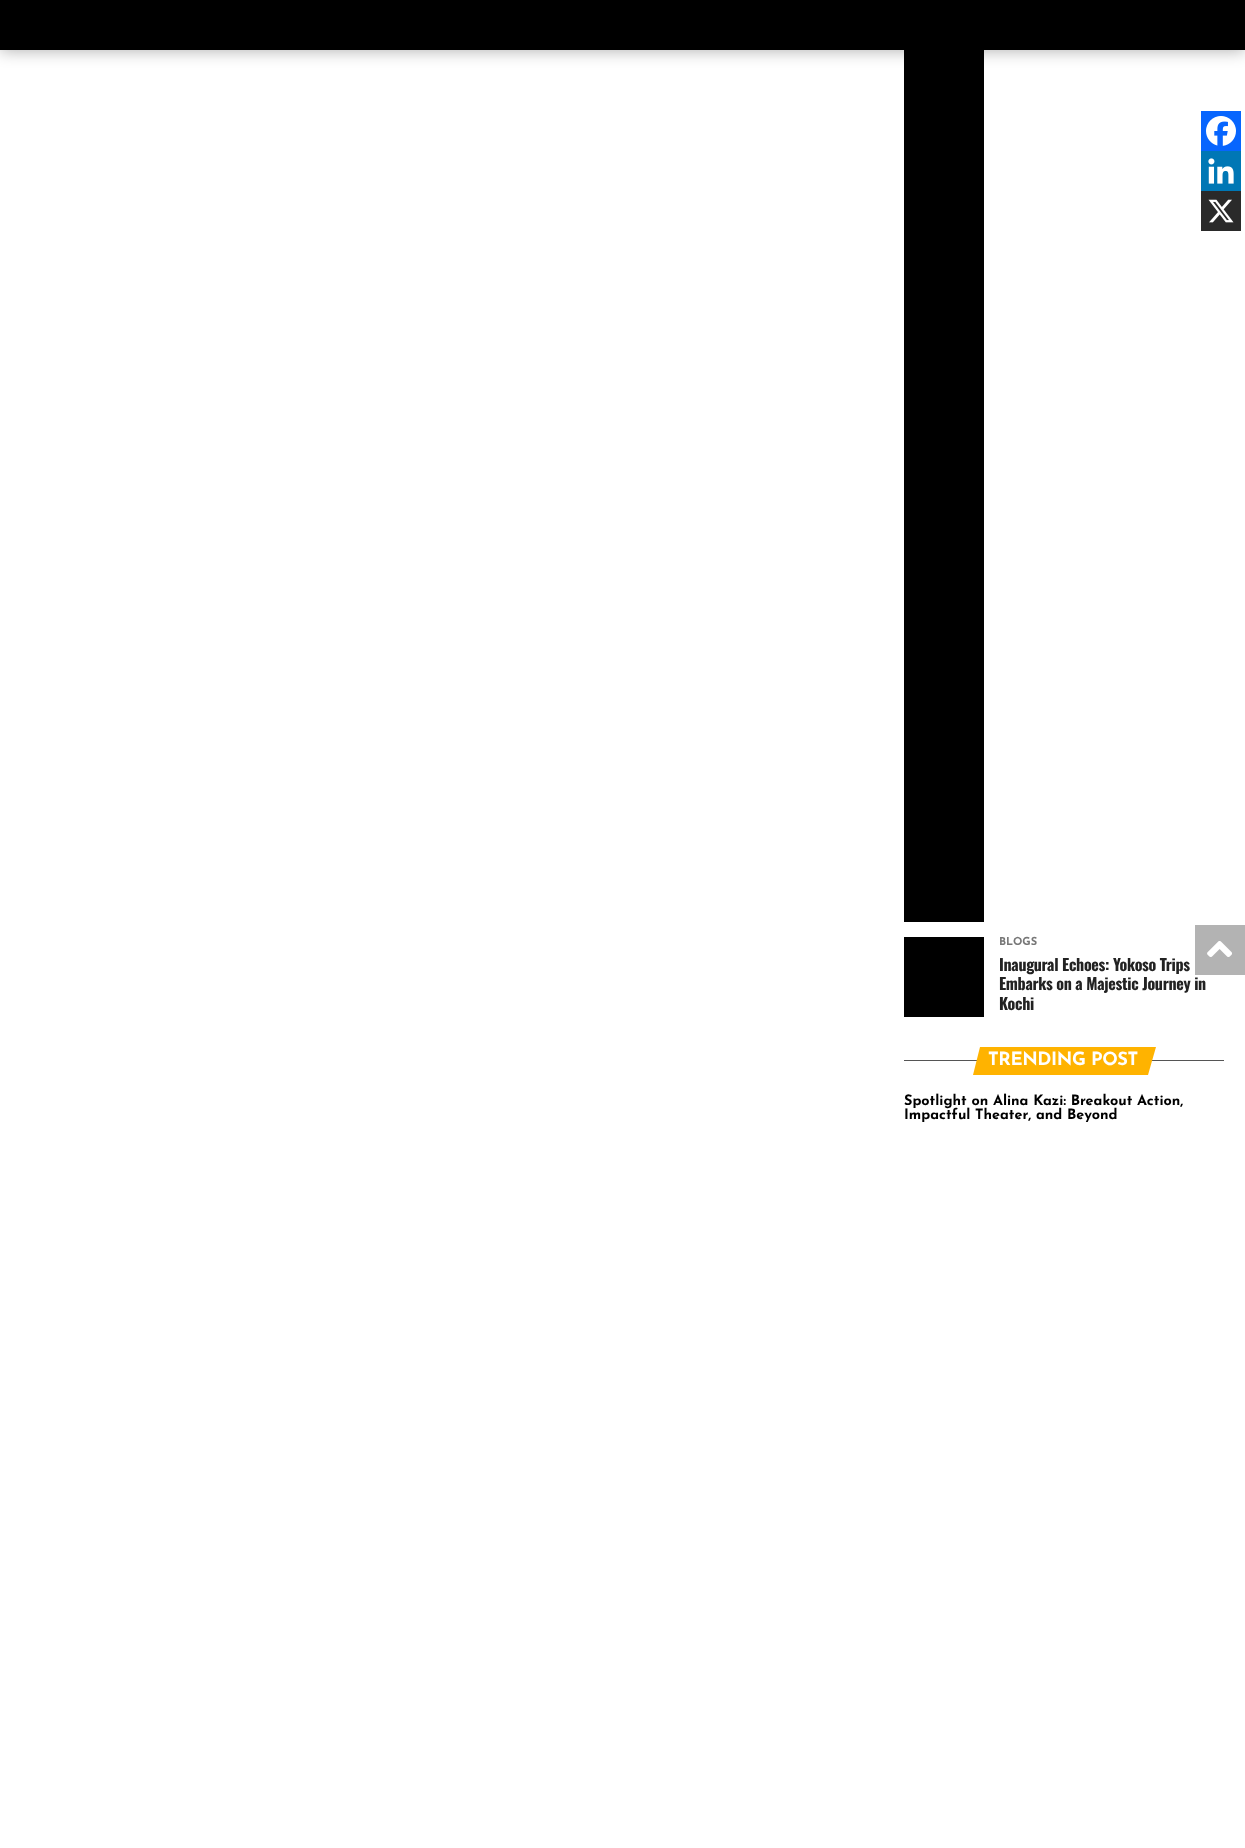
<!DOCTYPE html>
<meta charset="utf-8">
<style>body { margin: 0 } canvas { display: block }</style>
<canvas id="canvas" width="1245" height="1848"></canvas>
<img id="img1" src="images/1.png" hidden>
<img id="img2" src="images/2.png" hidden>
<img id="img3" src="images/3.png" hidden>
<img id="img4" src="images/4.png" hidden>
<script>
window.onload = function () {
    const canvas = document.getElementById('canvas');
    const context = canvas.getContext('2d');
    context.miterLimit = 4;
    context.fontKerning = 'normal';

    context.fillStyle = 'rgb(255, 255, 255)';
    context.fillRect(0, 0, 1245, 1848);
    context.fillStyle = 'rgb(0, 0, 0)';
    context.fillRect(904, 50, 80, 872);
    context.fillStyle = 'rgba(0, 0, 0, 0.3)';
    context.filter = 'blur(8px)';
    context.beginPath();
    context.rect(0, 1, 1245, 50);
    context.fill();
    context.filter = 'none';
    context.fillStyle = 'rgb(0, 0, 0)';
    context.fillRect(0, 0, 1245, 50);
    context.fillStyle = 'rgb(7, 101, 254)';
    context.fillRect(1201, 111, 40, 40);
    context.drawImage(document.getElementById('img1'), 1206, 116, 30, 30);
    context.fillStyle = 'rgb(0, 119, 181)';
    context.fillRect(1201, 151, 40, 40);
    context.drawImage(document.getElementById('img2'), 1208, 158, 26, 26);
    context.fillStyle = 'rgb(42, 42, 42)';
    context.fillRect(1201, 191, 40, 40);
    context.drawImage(document.getElementById('img3'), 1208, 199, 26, 24);
    context.fillStyle = 'rgb(0, 0, 0)';
    context.fillRect(904, 937, 80, 80);
    context.fillStyle = 'rgb(85, 85, 85)';
    context.fillRect(904, 1060, 320, 1);
    context.fillStyle = 'rgb(255, 179, 0)';
    context.beginPath();
    context.moveTo(980, 1047);
    context.lineTo(1156, 1047);
    context.lineTo(1148, 1075);
    context.lineTo(973, 1075);
    context.closePath();
    context.fill();
    context.fillStyle = 'rgb(179, 179, 179)';
    context.fillRect(1195, 925, 50, 50);
    context.drawImage(document.getElementById('img4'), 1207, 941, 25, 16);
    context.font = 'bold 11px Josefin Sans';
    context.fillStyle = 'rgb(119, 119, 119)';
    context.fillText('BLOGS', 999, 945);
    context.letterSpacing = '-0.3px';
    context.font = 'bold 16px Oswald';
    context.fillStyle = 'rgb(34, 34, 34)';
    context.fillText('Inaugural Echoes: Yokoso Trips', 999, 971);
    context.fillText('Embarks on a Majestic Journey in', 999, 990);
    context.fillText('Kochi', 999, 1010);
    context.letterSpacing = '-0.4px';
    context.font = 'bold 18.25px Josefin Sans';
    context.fillStyle = 'rgb(255, 255, 255)';
    context.fillText('TRENDING POST', 988, 1065);
    context.letterSpacing = '0px';
    context.font = 'bold 14.4px Josefin Sans';
    context.fillStyle = 'rgb(0, 0, 0)';
    context.fillText('Spotlight on Alina Kazi: Breakout Action,', 904, 1105);
    context.fillText('Impactful Theater, and Beyond', 904, 1119);
};
</script>
